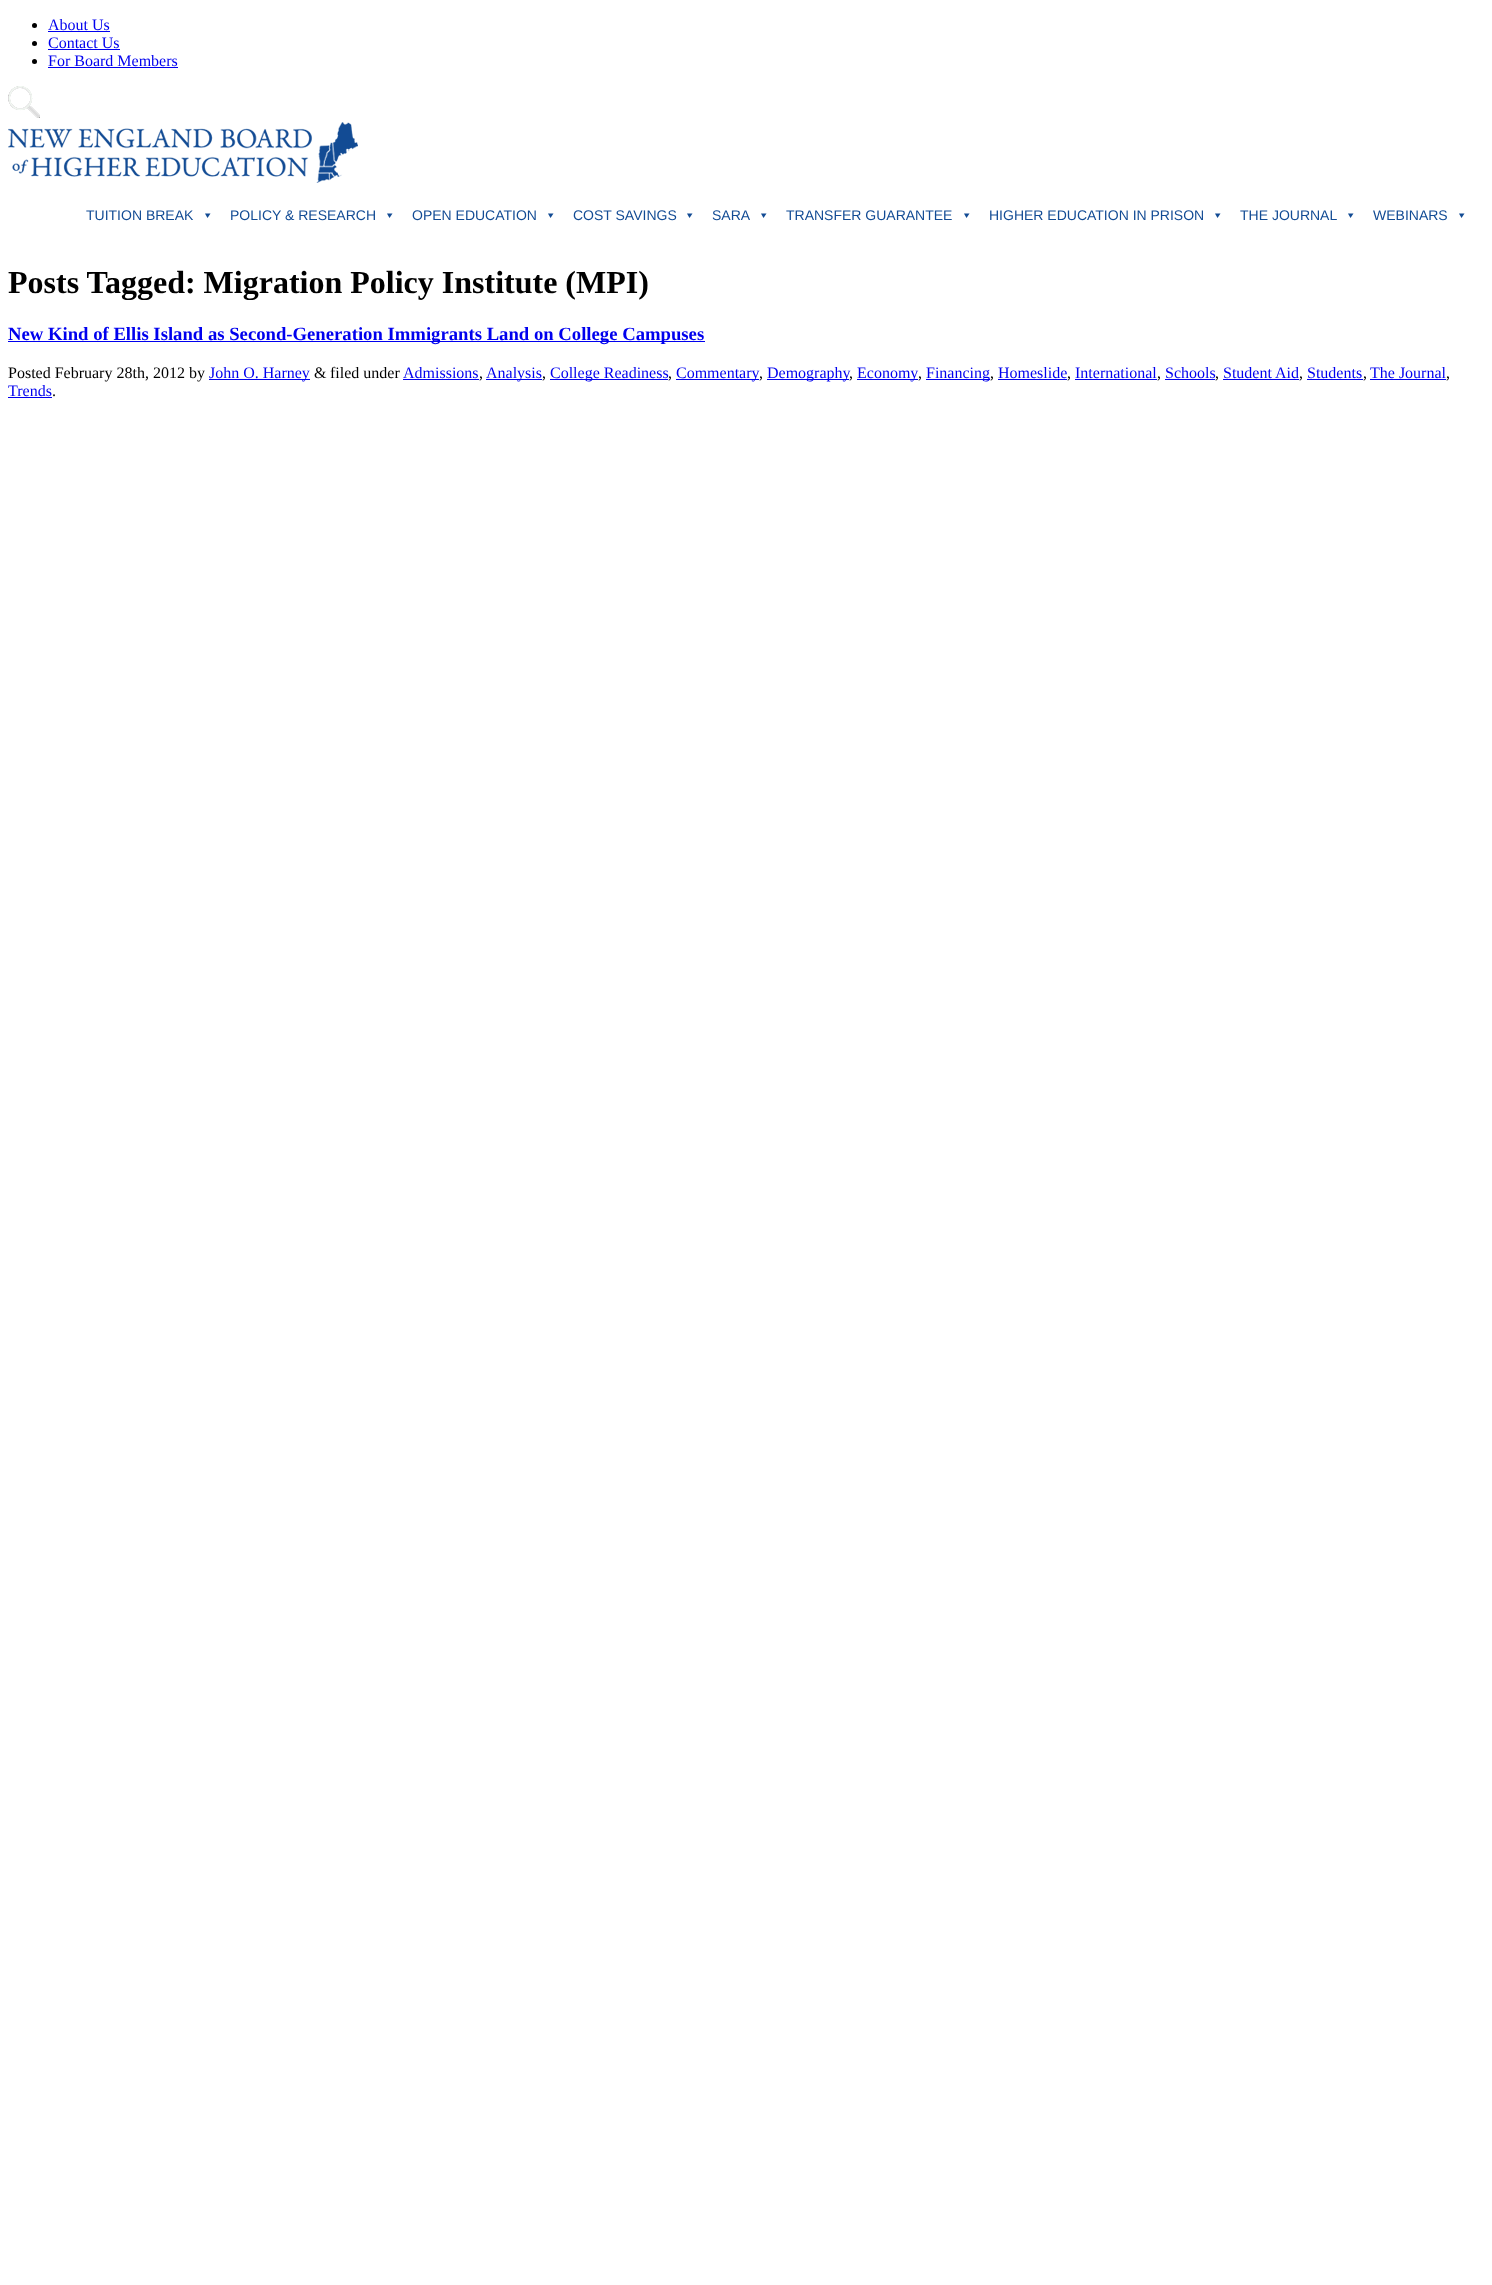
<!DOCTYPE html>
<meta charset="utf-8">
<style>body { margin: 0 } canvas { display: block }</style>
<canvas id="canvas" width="1492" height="2285"></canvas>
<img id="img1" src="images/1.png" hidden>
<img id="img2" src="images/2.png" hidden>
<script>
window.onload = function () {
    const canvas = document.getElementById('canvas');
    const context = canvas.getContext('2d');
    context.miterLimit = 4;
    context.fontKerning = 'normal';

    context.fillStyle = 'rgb(255, 255, 255)';
    context.fillRect(0, 0, 1492, 2285);
    context.fillStyle = 'rgb(0, 0, 0)';
    context.beginPath();
    context.arc(34.5, 25.5, 2.5, 0, 2 * Math.PI);
    context.fill();
    context.fillStyle = 'rgb(0, 0, 238)';
    context.fillRect(48, 31, 62, 1);
    context.fillStyle = 'rgb(0, 0, 0)';
    context.beginPath();
    context.arc(34.5, 43.5, 2.5, 0, 2 * Math.PI);
    context.fill();
    context.fillStyle = 'rgb(0, 0, 238)';
    context.fillRect(48, 49, 72, 1);
    context.fillStyle = 'rgb(0, 0, 0)';
    context.beginPath();
    context.arc(34.5, 61.5, 2.5, 0, 2 * Math.PI);
    context.fill();
    context.fillStyle = 'rgb(0, 0, 238)';
    context.fillRect(48, 67, 130, 1);
    context.drawImage(document.getElementById('img1'), 8, 86, 32, 32);
    context.drawImage(document.getElementById('img2'), 8, 122, 350, 61);
    context.fillStyle = 'rgb(18, 75, 148)';
    context.beginPath();
    context.moveTo(210.5, 213.5);
    context.lineTo(207.5, 218);
    context.lineTo(205, 213.5);
    context.closePath();
    context.fill();
    context.beginPath();
    context.moveTo(392.5, 213.5);
    context.lineTo(389.5, 218);
    context.lineTo(387, 213.5);
    context.closePath();
    context.fill();
    context.beginPath();
    context.moveTo(553.5, 213.5);
    context.lineTo(550.5, 218);
    context.lineTo(548, 213.5);
    context.closePath();
    context.fill();
    context.beginPath();
    context.moveTo(692.5, 213.5);
    context.lineTo(689.5, 218);
    context.lineTo(687, 213.5);
    context.closePath();
    context.fill();
    context.beginPath();
    context.moveTo(766.5, 213.5);
    context.lineTo(763.5, 218);
    context.lineTo(761, 213.5);
    context.closePath();
    context.fill();
    context.beginPath();
    context.moveTo(969.5, 213.5);
    context.lineTo(966.5, 218);
    context.lineTo(964, 213.5);
    context.closePath();
    context.fill();
    context.beginPath();
    context.moveTo(1220.5, 213.5);
    context.lineTo(1217.5, 218);
    context.lineTo(1215, 213.5);
    context.closePath();
    context.fill();
    context.beginPath();
    context.moveTo(1353.5, 213.5);
    context.lineTo(1350.5, 218);
    context.lineTo(1348, 213.5);
    context.closePath();
    context.fill();
    context.beginPath();
    context.moveTo(1464.5, 213.5);
    context.lineTo(1461.5, 218);
    context.lineTo(1459, 213.5);
    context.closePath();
    context.fill();
    context.fillStyle = 'rgb(0, 0, 238)';
    context.fillRect(8, 341, 697, 1);
    context.fillRect(209, 379, 101, 1);
    context.fillRect(403, 379, 76, 1);
    context.fillRect(486, 379, 56, 1);
    context.fillRect(550, 379, 118, 1);
    context.fillRect(676, 379, 83, 1);
    context.fillRect(767, 379, 82, 1);
    context.fillRect(857, 379, 61, 1);
    context.fillRect(926, 379, 64, 1);
    context.fillRect(998, 379, 69, 1);
    context.fillRect(1075, 379, 82, 1);
    context.fillRect(1165, 379, 50, 1);
    context.fillRect(1223, 379, 76, 1);
    context.fillRect(1307, 379, 56, 1);
    context.fillRect(1370, 379, 76, 1);
    context.fillRect(8, 397, 44, 1);
    context.font = '16px Liberation Serif';
    context.fillText('About Us', 48, 30);
    context.fillText('Contact Us', 48, 48);
    context.fillText('For Board Members', 48, 66);
    context.font = '14px Liberation Sans';
    context.fillStyle = 'rgb(18, 75, 148)';
    context.fillText('TUITION BREAK', 86, 220);
    context.fillText('POLICY & RESEARCH', 230, 220);
    context.fillText('OPEN EDUCATION', 412, 220);
    context.fillText('COST SAVINGS', 573, 220);
    context.fillText('SARA', 712, 220);
    context.fillText('TRANSFER GUARANTEE', 786, 220);
    context.fillText('HIGHER EDUCATION IN PRISON', 989, 220);
    context.fillText('THE JOURNAL', 1240, 220);
    context.fillText('WEBINARS', 1373, 220);
    context.font = 'bold 32px Liberation Serif';
    context.fillStyle = 'rgb(0, 0, 0)';
    context.fillText('Posts Tagged: Migration Policy Institute (MPI)', 8, 293);
    context.font = 'bold 18.7px Liberation Serif';
    context.fillStyle = 'rgb(0, 0, 238)';
    context.fillText('New Kind of Ellis Island as Second-Generation Immigrants Land on College Campuses', 8, 340);
    context.font = '16px Liberation Serif';
    context.fillStyle = 'rgb(0, 0, 0)';
    context.fillText('Posted February 28th, 2012 by', 8, 378);
    context.fillStyle = 'rgb(0, 0, 238)';
    context.fillText('John O. Harney', 209, 378);
    context.fillStyle = 'rgb(0, 0, 0)';
    context.fillText('&', 314, 378);
    context.fillText('filed under', 330, 378);
    context.fillStyle = 'rgb(0, 0, 238)';
    context.fillText('Admissions', 403, 378);
    context.fillStyle = 'rgb(0, 0, 0)';
    context.fillText(',', 479, 378);
    context.fillStyle = 'rgb(0, 0, 238)';
    context.fillText('Analysis', 486, 378);
    context.fillStyle = 'rgb(0, 0, 0)';
    context.fillText(',', 542, 378);
    context.fillStyle = 'rgb(0, 0, 238)';
    context.fillText('College Readiness', 550, 378);
    context.fillStyle = 'rgb(0, 0, 0)';
    context.fillText(',', 668, 378);
    context.fillStyle = 'rgb(0, 0, 238)';
    context.fillText('Commentary', 676, 378);
    context.fillStyle = 'rgb(0, 0, 0)';
    context.fillText(',', 759, 378);
    context.fillStyle = 'rgb(0, 0, 238)';
    context.fillText('Demography', 767, 378);
    context.fillStyle = 'rgb(0, 0, 0)';
    context.fillText(',', 849, 378);
    context.fillStyle = 'rgb(0, 0, 238)';
    context.fillText('Economy', 857, 378);
    context.fillStyle = 'rgb(0, 0, 0)';
    context.fillText(',', 918, 378);
    context.fillStyle = 'rgb(0, 0, 238)';
    context.fillText('Financing', 926, 378);
    context.fillStyle = 'rgb(0, 0, 0)';
    context.fillText(',', 990, 378);
    context.fillStyle = 'rgb(0, 0, 238)';
    context.fillText('Homeslide', 998, 378);
    context.fillStyle = 'rgb(0, 0, 0)';
    context.fillText(',', 1067, 378);
    context.fillStyle = 'rgb(0, 0, 238)';
    context.fillText('International', 1075, 378);
    context.fillStyle = 'rgb(0, 0, 0)';
    context.fillText(',', 1157, 378);
    context.fillStyle = 'rgb(0, 0, 238)';
    context.fillText('Schools', 1165, 378);
    context.fillStyle = 'rgb(0, 0, 0)';
    context.fillText(',', 1215, 378);
    context.fillStyle = 'rgb(0, 0, 238)';
    context.fillText('Student Aid', 1223, 378);
    context.fillStyle = 'rgb(0, 0, 0)';
    context.fillText(',', 1299, 378);
    context.fillStyle = 'rgb(0, 0, 238)';
    context.fillText('Students', 1307, 378);
    context.fillStyle = 'rgb(0, 0, 0)';
    context.fillText(',', 1363, 378);
    context.fillStyle = 'rgb(0, 0, 238)';
    context.fillText('The Journal', 1370, 378);
    context.fillStyle = 'rgb(0, 0, 0)';
    context.fillText(',', 1446, 378);
    context.fillStyle = 'rgb(0, 0, 238)';
    context.fillText('Trends', 8, 396);
    context.fillStyle = 'rgb(0, 0, 0)';
    context.fillText('.', 52, 396);
};
</script>
